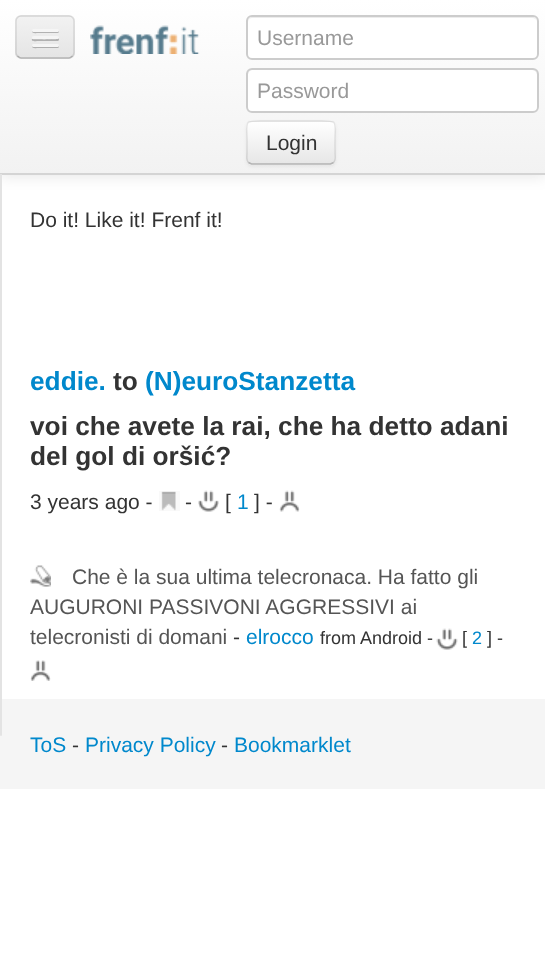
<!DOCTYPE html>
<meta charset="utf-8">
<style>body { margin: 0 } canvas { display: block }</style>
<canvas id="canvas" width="545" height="953"></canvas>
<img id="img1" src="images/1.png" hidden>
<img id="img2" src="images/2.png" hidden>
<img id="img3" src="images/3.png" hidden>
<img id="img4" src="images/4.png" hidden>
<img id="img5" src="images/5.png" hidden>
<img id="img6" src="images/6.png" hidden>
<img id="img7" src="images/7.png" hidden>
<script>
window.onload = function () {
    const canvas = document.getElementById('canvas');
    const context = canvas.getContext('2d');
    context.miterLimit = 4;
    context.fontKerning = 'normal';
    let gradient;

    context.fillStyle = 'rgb(255, 255, 255)';
    context.fillRect(0, 0, 545, 953);
    context.fillStyle = 'rgba(0, 0, 0, 0.1)';
    context.filter = 'blur(7.5px)';
    context.beginPath();
    context.rect(0, 2, 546, 174);
    context.fill();
    context.filter = 'none';
    gradient = context.createLinearGradient(273, 0, 273, 173);
    gradient.addColorStop(0, 'rgb(255, 255, 255)');
    gradient.addColorStop(1, 'rgb(242, 242, 242)');
    context.fillStyle = gradient;
    context.fillRect(0, 0, 545, 173);
    context.fillStyle = 'rgb(212, 212, 212)';
    context.fillRect(0, 173, 545, 2);
    context.fillStyle = 'rgb(237, 237, 237)';
    context.beginPath();
    context.roundRect(15, 15, 60, 44, 6);
    context.fill();
    context.save();
    context.beginPath();
    context.roundRect(15, 15, 60, 44, 6);
    context.clip();
    gradient = context.createLinearGradient(45, 16, 45, 57);
    gradient.addColorStop(0, 'rgb(242, 242, 242)');
    gradient.addColorStop(1, 'rgb(229, 229, 229)');
    context.fillStyle = gradient;
    context.fillRect(15, 17, 60, 40);
    context.restore();
    context.beginPath();
    context.moveTo(72.5, 56);
    context.bezierCurveTo(71.5, 57, 70.5, 58, 69, 58);
    context.lineTo(21, 58);
    context.bezierCurveTo(19.5, 58, 18.5, 57, 17.5, 56);
    context.strokeStyle = 'rgba(0, 0, 0, 0.25)';
    context.lineWidth = 1.5;
    context.stroke();
    context.beginPath();
    context.moveTo(17.5, 56);
    context.bezierCurveTo(16.5, 55, 16, 54, 16, 52.5);
    context.lineTo(16, 21);
    context.bezierCurveTo(16, 19.5, 16.5, 18.5, 17.5, 17.5);
    context.bezierCurveTo(18.5, 16.5, 19.5, 16, 21, 16);
    context.lineTo(69, 16);
    context.bezierCurveTo(70.5, 16, 71.5, 16.5, 72.5, 17.5);
    context.bezierCurveTo(73.5, 18.5, 74, 19.5, 74, 21);
    context.lineTo(74, 52.5);
    context.bezierCurveTo(74, 54, 73.5, 55, 72.5, 56);
    context.strokeStyle = 'rgba(0, 0, 0, 0.1)';
    context.stroke();
    context.fillStyle = 'rgb(178, 178, 178)';
    context.beginPath();
    context.moveTo(32, 31);
    context.bezierCurveTo(31.5, 34, 37, 33, 37.5, 33);
    context.lineTo(57.5, 33);
    context.bezierCurveTo(59, 33, 59.5, 31, 58.5, 30.5);
    context.lineTo(57.5, 31.5);
    context.bezierCurveTo(56, 32, 32.5, 31.5, 32, 31);
    context.closePath();
    context.fill();
    context.fillStyle = 'rgb(245, 245, 245)';
    context.beginPath();
    context.roundRect(32, 29, 27, 3, 1.5);
    context.fill();
    context.fillStyle = 'rgb(176, 176, 176)';
    context.beginPath();
    context.moveTo(32, 39);
    context.bezierCurveTo(30.5, 42, 37.5, 41, 37.5, 41);
    context.lineTo(58, 41);
    context.bezierCurveTo(59, 40.5, 59.5, 39, 58.5, 38);
    context.lineTo(57, 39);
    context.bezierCurveTo(55, 39.5, 33, 39.5, 32, 39);
    context.closePath();
    context.fill();
    context.fillStyle = 'rgb(245, 245, 245)';
    context.beginPath();
    context.roundRect(32, 36, 27, 3, 1.5);
    context.fill();
    context.fillStyle = 'rgb(174, 174, 174)';
    context.beginPath();
    context.moveTo(32, 46);
    context.bezierCurveTo(31.5, 49, 37, 48, 37.5, 48);
    context.lineTo(57.5, 48);
    context.bezierCurveTo(59, 48, 59.5, 46, 58.5, 45.5);
    context.lineTo(57.5, 46.5);
    context.bezierCurveTo(56, 47, 32.5, 46.5, 32, 46);
    context.closePath();
    context.fill();
    context.fillStyle = 'rgb(245, 245, 245)';
    context.beginPath();
    context.roundRect(32, 44, 27, 3, 1.5);
    context.fill();
    context.drawImage(document.getElementById('img1'), 90, 25, 110, 29);
    context.fillStyle = 'rgb(255, 255, 255)';
    context.beginPath();
    context.roundRect(246, 15, 293, 45, 6);
    context.fill();
    context.fillStyle = 'rgb(236, 236, 236)';
    context.beginPath();
    context.moveTo(252, 18);
    context.lineTo(532, 18);
    context.bezierCurveTo(535, 18, 537, 20, 537, 22);
    context.bezierCurveTo(537, 19, 535, 17, 532, 17);
    context.lineTo(253, 17);
    context.bezierCurveTo(250, 17, 248, 19, 248, 22);
    context.bezierCurveTo(248, 20, 250, 18, 252, 18);
    context.closePath();
    context.fill();
    context.beginPath();
    context.roundRect(247, 16, 291, 43, 5);
    context.strokeStyle = 'rgb(204, 204, 204)';
    context.lineWidth = 2;
    context.stroke();
    context.fillStyle = 'rgb(255, 255, 255)';
    context.beginPath();
    context.roundRect(246, 68, 293, 45, 6);
    context.fill();
    context.fillStyle = 'rgb(236, 236, 236)';
    context.beginPath();
    context.moveTo(252, 70);
    context.lineTo(532, 70);
    context.bezierCurveTo(535, 70, 537, 73, 537, 75);
    context.lineTo(537, 74);
    context.bezierCurveTo(537, 71, 535, 69, 532, 69);
    context.lineTo(253, 69);
    context.bezierCurveTo(250, 69, 248, 71, 248, 74);
    context.lineTo(248, 75);
    context.bezierCurveTo(248, 73, 250, 70, 252, 70);
    context.closePath();
    context.fill();
    context.beginPath();
    context.roundRect(247, 69, 291, 43, 5);
    context.stroke();
    context.fillStyle = 'rgba(0, 0, 0, 0.05)';
    context.filter = 'blur(1.5px)';
    context.beginPath();
    context.roundRect(246, 122, 90, 45, 6);
    context.fill();
    context.filter = 'none';
    context.fillStyle = 'rgb(245, 245, 245)';
    context.beginPath();
    context.roundRect(246, 120, 90, 45, 6);
    context.fill();
    context.save();
    context.beginPath();
    context.roundRect(246, 120, 90, 45, 6);
    context.clip();
    gradient = context.createLinearGradient(291, 122, 291, 164);
    gradient.addColorStop(0, 'rgb(255, 255, 255)');
    gradient.addColorStop(1, 'rgb(230, 230, 230)');
    context.fillStyle = gradient;
    context.fillRect(246, 122, 90, 42);
    context.restore();
    context.fillStyle = 'rgba(255, 255, 255, 0.2)';
    context.beginPath();
    context.moveTo(252, 123);
    context.lineTo(330, 123);
    context.bezierCurveTo(332, 123, 334, 125, 334, 128);
    context.lineTo(334, 160);
    context.lineTo(333, 163);
    context.bezierCurveTo(334, 162, 335, 160, 335, 159);
    context.lineTo(335, 127);
    context.bezierCurveTo(335, 124, 333, 122, 330, 122);
    context.lineTo(253, 122);
    context.bezierCurveTo(250, 122, 248, 124, 248, 127);
    context.lineTo(248, 128);
    context.bezierCurveTo(248, 125, 250, 123, 252, 123);
    context.closePath();
    context.fill();
    context.beginPath();
    context.moveTo(333.5, 162.5);
    context.lineTo(330.5, 164);
    context.lineTo(251.5, 164);
    context.lineTo(248.5, 162.5);
    context.strokeStyle = 'rgb(179, 179, 179)';
    context.lineWidth = 1.5;
    context.stroke();
    context.beginPath();
    context.moveTo(248.5, 162.5);
    context.bezierCurveTo(246, 160.5, 247, 156.5, 247, 153.5);
    context.lineTo(247, 142.5);
    context.bezierCurveTo(247, 119.5, 242.5, 121, 265, 121);
    context.lineTo(317, 121);
    context.bezierCurveTo(339.5, 121, 335, 119.5, 335, 142.5);
    context.lineTo(335, 153.5);
    context.bezierCurveTo(335, 156.5, 336, 160.5, 333.5, 162.5);
    context.strokeStyle = 'rgba(0, 0, 0, 0.1)';
    context.stroke();
    context.fillStyle = 'rgb(245, 245, 245)';
    context.fillRect(0, 699, 545, 90);
    context.fillStyle = 'rgb(227, 227, 227)';
    context.fillRect(0, 174, 2, 561);
    context.beginPath();
    context.arc(1, 735, 1, 0, 2 * Math.PI);
    context.fill();
    context.drawImage(document.getElementById('img2'), 159, 491, 21, 20);
    context.drawImage(document.getElementById('img3'), 198, 490, 21, 22);
    context.drawImage(document.getElementById('img4'), 279, 490, 21, 22);
    context.drawImage(document.getElementById('img5'), 30, 565, 21, 22);
    context.drawImage(document.getElementById('img6'), 436, 628, 22, 22);
    context.drawImage(document.getElementById('img7'), 30, 660, 21, 21);
    context.font = '21px Liberation Sans';
    context.fillStyle = 'rgb(153, 153, 153)';
    context.fillText('Username', 257, 45);
    context.fillText('Password', 257, 98);
    context.fillStyle = 'rgb(51, 51, 51)';
    context.fillText('Login', 266, 150);
    context.fillText('Do it! Like it! Frenf it!', 30, 227);
    context.font = 'bold 26.25px Liberation Sans';
    context.fillStyle = 'rgb(0, 136, 204)';
    context.fillText('eddie.', 30, 390);
    context.fillStyle = 'rgb(51, 51, 51)';
    context.fillText('to', 113, 390);
    context.fillStyle = 'rgb(0, 136, 204)';
    context.fillText('(N)euroStanzetta', 145, 390);
    context.fillStyle = 'rgb(51, 51, 51)';
    context.fillText('voi che avete la rai, che ha detto adani', 30, 435);
    context.fillText('del gol di oršić?', 30, 465);
    context.font = '21px Liberation Sans';
    context.fillText('3 years ago -', 30, 509);
    context.fillText('-', 185, 509);
    context.fillText('[', 225, 509);
    context.fillStyle = 'rgb(0, 136, 204)';
    context.fillText('1', 237, 509);
    context.fillStyle = 'rgb(51, 51, 51)';
    context.fillText('] -', 254, 509);
    context.fillStyle = 'rgb(85, 85, 85)';
    context.fillText('Che è la sua ultima telecronaca. Ha fatto gli', 72, 584);
    context.fillText('AUGURONI PASSIVONI AGGRESSIVI ai', 30, 614);
    context.fillText('telecronisti di domani', 30, 644);
    context.fillStyle = 'rgb(51, 51, 51)';
    context.fillText('-', 233, 644);
    context.fillStyle = 'rgb(0, 136, 204)';
    context.fillText('elrocco', 246, 644);
    context.font = '18px Liberation Sans';
    context.fillStyle = 'rgb(51, 51, 51)';
    context.fillText('from Android -', 320, 644);
    context.fillText('[', 462, 644);
    context.fillStyle = 'rgb(0, 136, 204)';
    context.fillText('2', 472, 644);
    context.fillStyle = 'rgb(51, 51, 51)';
    context.fillText('] -', 487, 644);
    context.font = '21px Liberation Sans';
    context.fillStyle = 'rgb(0, 136, 204)';
    context.fillText('ToS', 30, 752);
    context.fillStyle = 'rgb(51, 51, 51)';
    context.fillText('-', 72, 752);
    context.fillStyle = 'rgb(0, 136, 204)';
    context.fillText('Privacy Policy', 85, 752);
    context.fillStyle = 'rgb(51, 51, 51)';
    context.fillText('-', 221, 752);
    context.fillStyle = 'rgb(0, 136, 204)';
    context.fillText('Bookmarklet', 234, 752);
};
</script>
